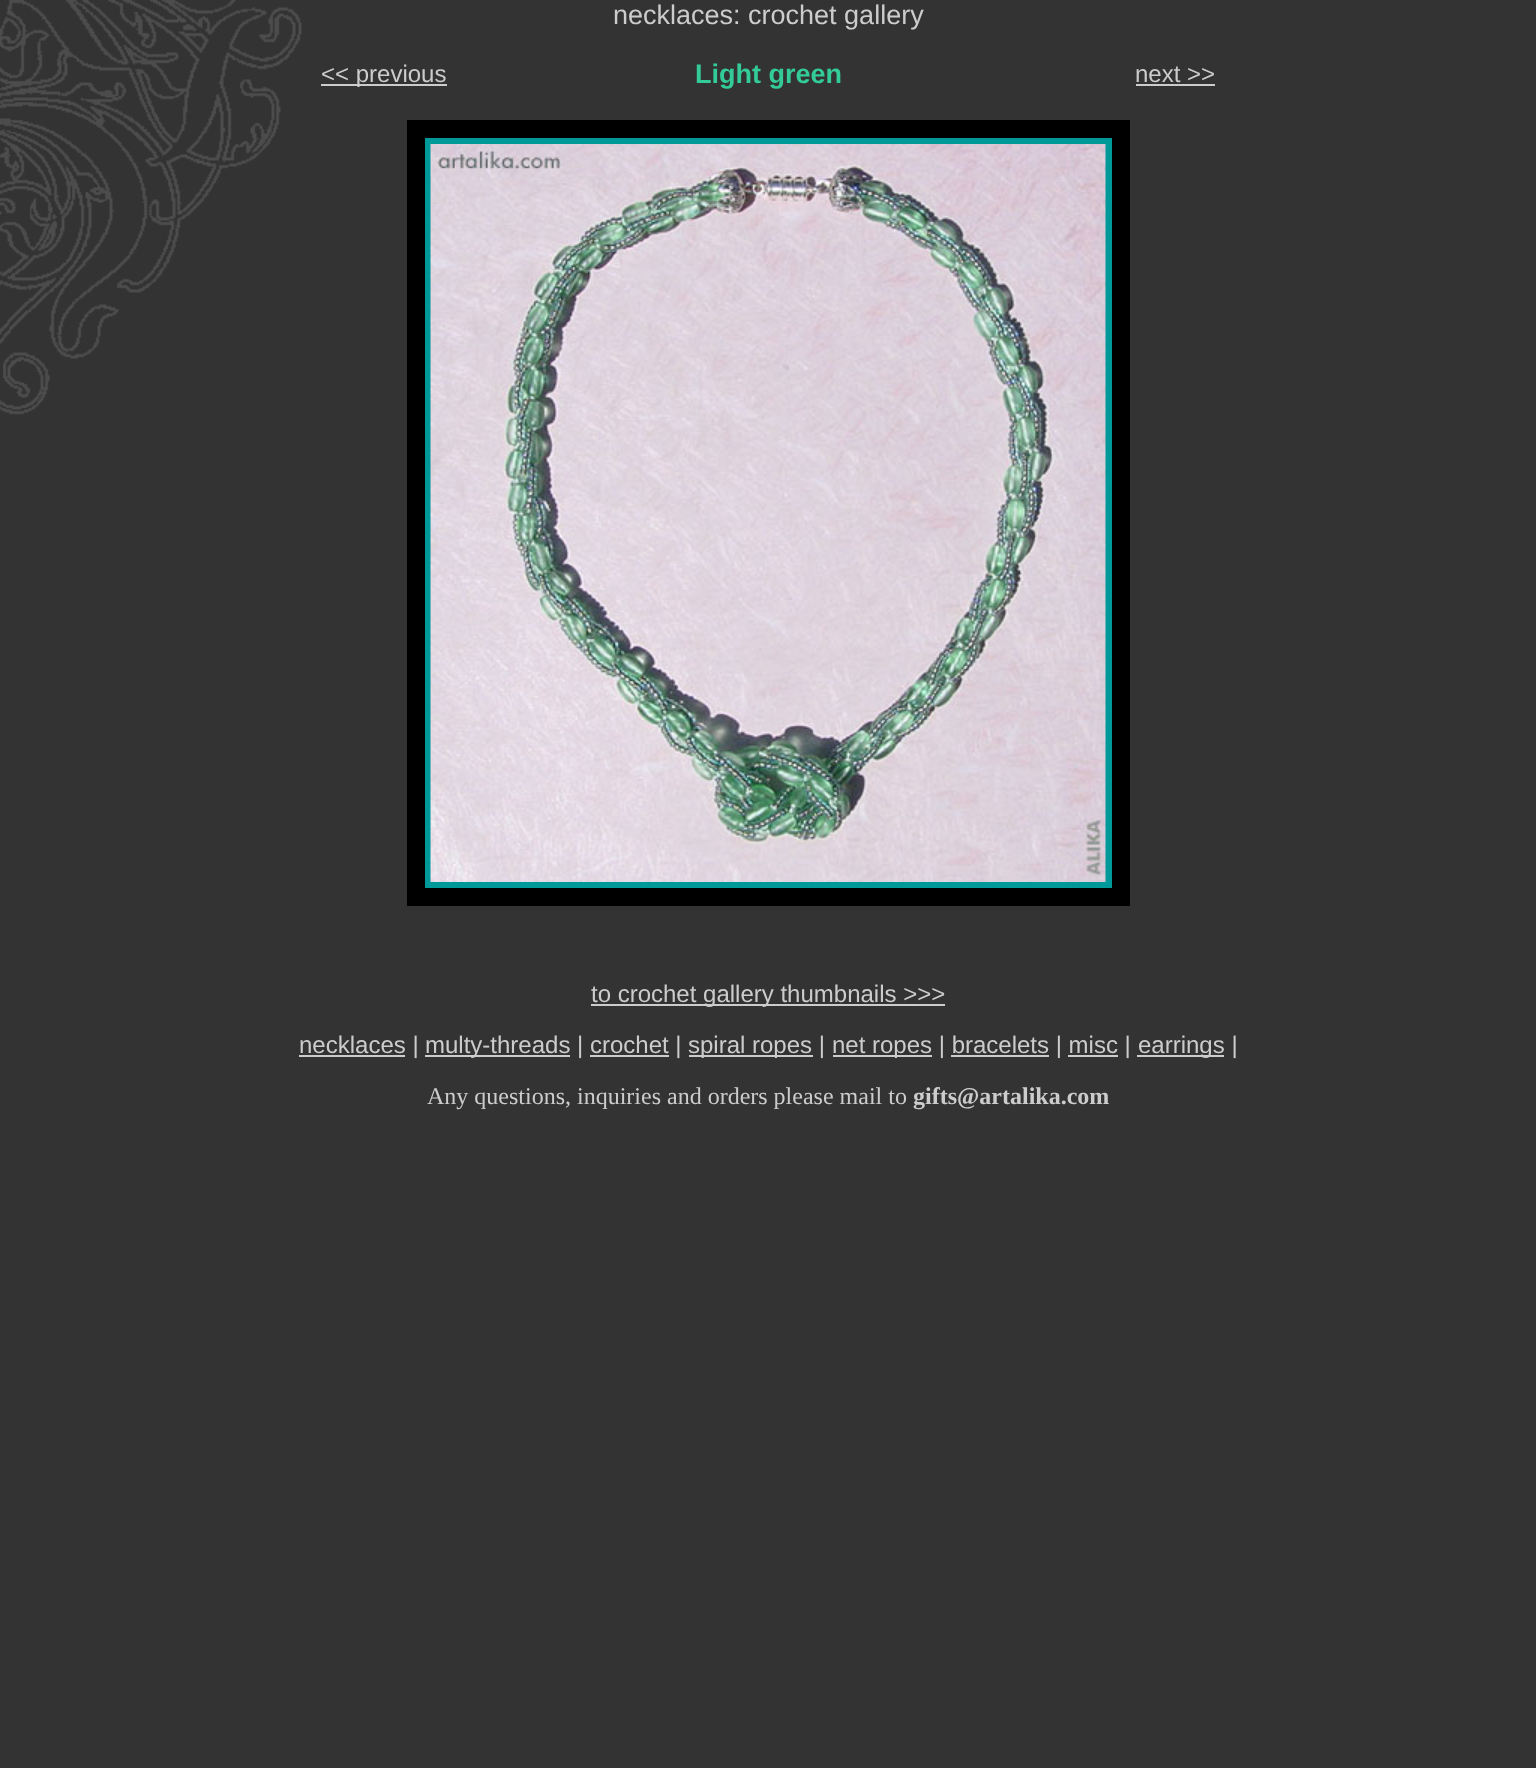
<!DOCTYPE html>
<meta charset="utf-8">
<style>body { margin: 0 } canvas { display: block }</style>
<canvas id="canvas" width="1536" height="1768"></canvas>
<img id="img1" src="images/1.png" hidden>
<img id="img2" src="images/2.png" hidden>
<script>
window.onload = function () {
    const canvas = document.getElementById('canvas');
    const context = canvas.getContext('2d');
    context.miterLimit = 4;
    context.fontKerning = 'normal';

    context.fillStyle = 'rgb(51, 51, 51)';
    context.fillRect(0, 0, 1536, 1768);
    context.drawImage(document.getElementById('img1'), 0, 0, 302, 415);
    context.fillStyle = 'rgb(204, 204, 204)';
    context.fillRect(321, 84, 126, 2);
    context.fillRect(1136, 84, 79, 2);
    context.fillStyle = 'rgb(0, 0, 0)';
    context.fillRect(407, 120, 723, 786);
    context.fillStyle = 'rgb(0, 153, 153)';
    context.fillRect(425, 138, 687, 750);
    context.drawImage(document.getElementById('img2'), 430, 144, 676, 738);
    context.fillStyle = 'rgb(204, 204, 204)';
    context.fillRect(591, 1004, 354, 2);
    context.fillRect(299, 1055, 106, 2);
    context.fillRect(425, 1055, 145, 2);
    context.fillRect(590, 1055, 79, 2);
    context.fillRect(689, 1055, 124, 2);
    context.fillRect(833, 1055, 99, 2);
    context.fillRect(951, 1055, 98, 2);
    context.fillRect(1068, 1055, 50, 2);
    context.fillRect(1137, 1055, 87, 2);
    context.font = '27px Liberation Sans';
    context.fillText('necklaces: crochet gallery', 613, 24);
    context.font = '24px Liberation Sans';
    context.fillText('<< previous', 321, 82);
    context.font = 'bold 27px Liberation Sans';
    context.fillStyle = 'rgb(51, 204, 153)';
    context.fillText('Light green', 695, 83);
    context.font = '24px Liberation Sans';
    context.fillStyle = 'rgb(204, 204, 204)';
    context.fillText('next >>', 1135, 82);
    context.fillText('to crochet gallery thumbnails >>>', 591, 1002);
    context.fillText('necklaces |', 299, 1053);
    context.fillText('multy-threads | crochet |', 425, 1053);
    context.fillText('spiral ropes |', 688, 1053);
    context.fillText('net ropes | bracelets | misc |', 832, 1053);
    context.fillText('earrings |', 1138, 1053);
    context.font = '24px Liberation Serif';
    context.fillText('Any questions, inquiries and orders please mail to', 427, 1104);
    context.font = 'bold 24px Liberation Serif';
    context.fillText('gifts@artalika.com', 913, 1104);
};
</script>
